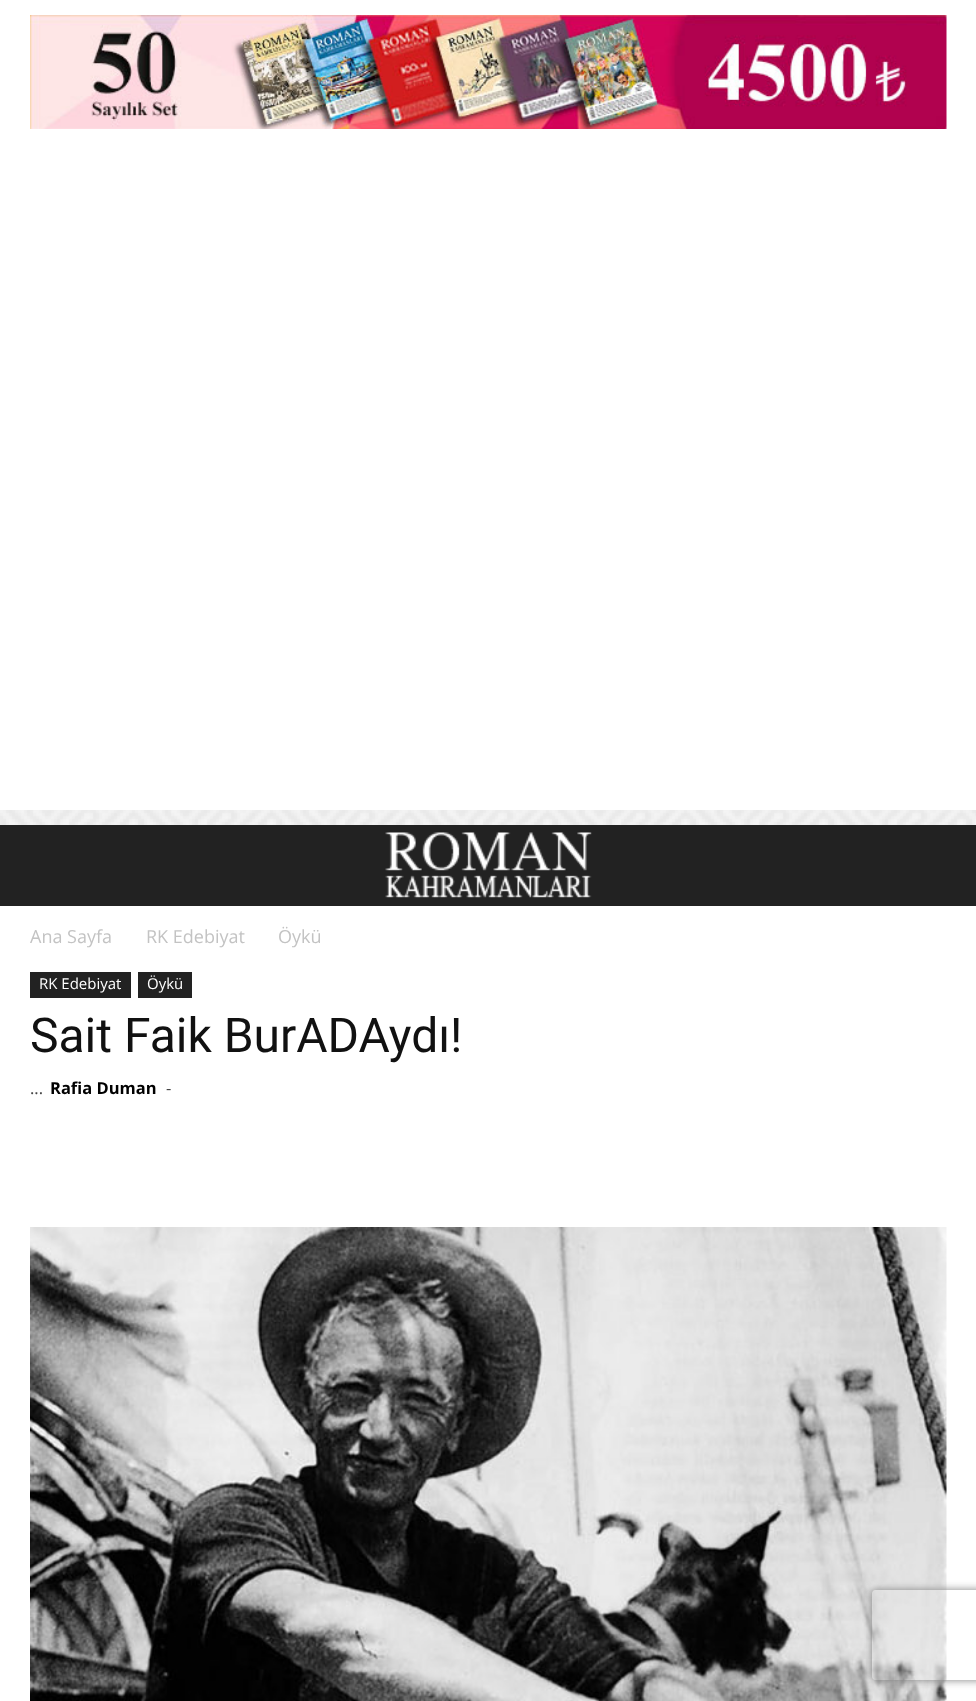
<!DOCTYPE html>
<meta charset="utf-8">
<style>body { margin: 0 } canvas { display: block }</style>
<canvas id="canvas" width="976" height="1701"></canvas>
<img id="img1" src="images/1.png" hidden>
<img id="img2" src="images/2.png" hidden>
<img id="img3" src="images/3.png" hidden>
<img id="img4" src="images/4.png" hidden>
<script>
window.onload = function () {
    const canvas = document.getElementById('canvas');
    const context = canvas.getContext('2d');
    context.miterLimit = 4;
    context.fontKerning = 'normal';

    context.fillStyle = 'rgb(255, 255, 255)';
    context.fillRect(0, 0, 976, 1701);
    context.drawImage(document.getElementById('img1'), 0, 810, 976, 15);
    context.drawImage(document.getElementById('img2'), 30, 15, 917, 114);
    context.fillStyle = 'rgb(34, 34, 34)';
    context.fillRect(0, 825, 976, 81);
    context.drawImage(document.getElementById('img3'), 385, 832, 207, 66);
    context.fillRect(30, 972, 101, 26);
    context.fillRect(138, 972, 54, 26);
    context.drawImage(document.getElementById('img4'), 30, 1227, 917, 474);
    context.save();
    context.beginPath();
    context.moveTo(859, 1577);
    context.lineTo(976, 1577);
    context.lineTo(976, 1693);
    context.lineTo(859, 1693);
    context.closePath();
    context.moveTo(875, 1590);
    context.lineTo(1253, 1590);
    context.bezierCurveTo(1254.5, 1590, 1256, 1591.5, 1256, 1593);
    context.lineTo(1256, 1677);
    context.bezierCurveTo(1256, 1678.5, 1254.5, 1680, 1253, 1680);
    context.lineTo(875, 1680);
    context.bezierCurveTo(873.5, 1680, 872, 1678.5, 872, 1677);
    context.lineTo(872, 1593);
    context.bezierCurveTo(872, 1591.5, 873.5, 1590, 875, 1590);
    context.closePath();
    context.clip('evenodd');
    context.fillStyle = 'rgb(128, 128, 128)';
    context.filter = 'blur(4px)';
    context.beginPath();
    context.roundRect(872, 1590, 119, 90, 3);
    context.fill();
    context.filter = 'none';
    context.restore();
    context.font = '18px Open Sans';
    context.fillStyle = 'rgb(195, 195, 195)';
    context.fillText('Ana Sayfa', 30, 943);
    context.fillText('RK Edebiyat', 146, 943);
    context.fillText('Öykü', 278, 943);
    context.font = '15px Open Sans';
    context.fillStyle = 'rgb(255, 255, 255)';
    context.fillText('RK Edebiyat', 39, 989);
    context.fillText('Öykü', 147, 989);
    context.font = '48px Roboto';
    context.fillStyle = 'rgb(17, 17, 17)';
    context.fillText('Sait Faik BurADAydı!', 30, 1052);
    context.font = 'bold 16.5px Open Sans';
    context.fillStyle = 'rgb(0, 0, 0)';
    context.fillText('Rafia Duman', 50, 1094);
    context.font = '16.5px Open Sans';
    context.fillStyle = 'rgb(68, 68, 68)';
    context.fillText('-', 166, 1094);
    context.fillText('...', 30, 1094);
};
</script>
